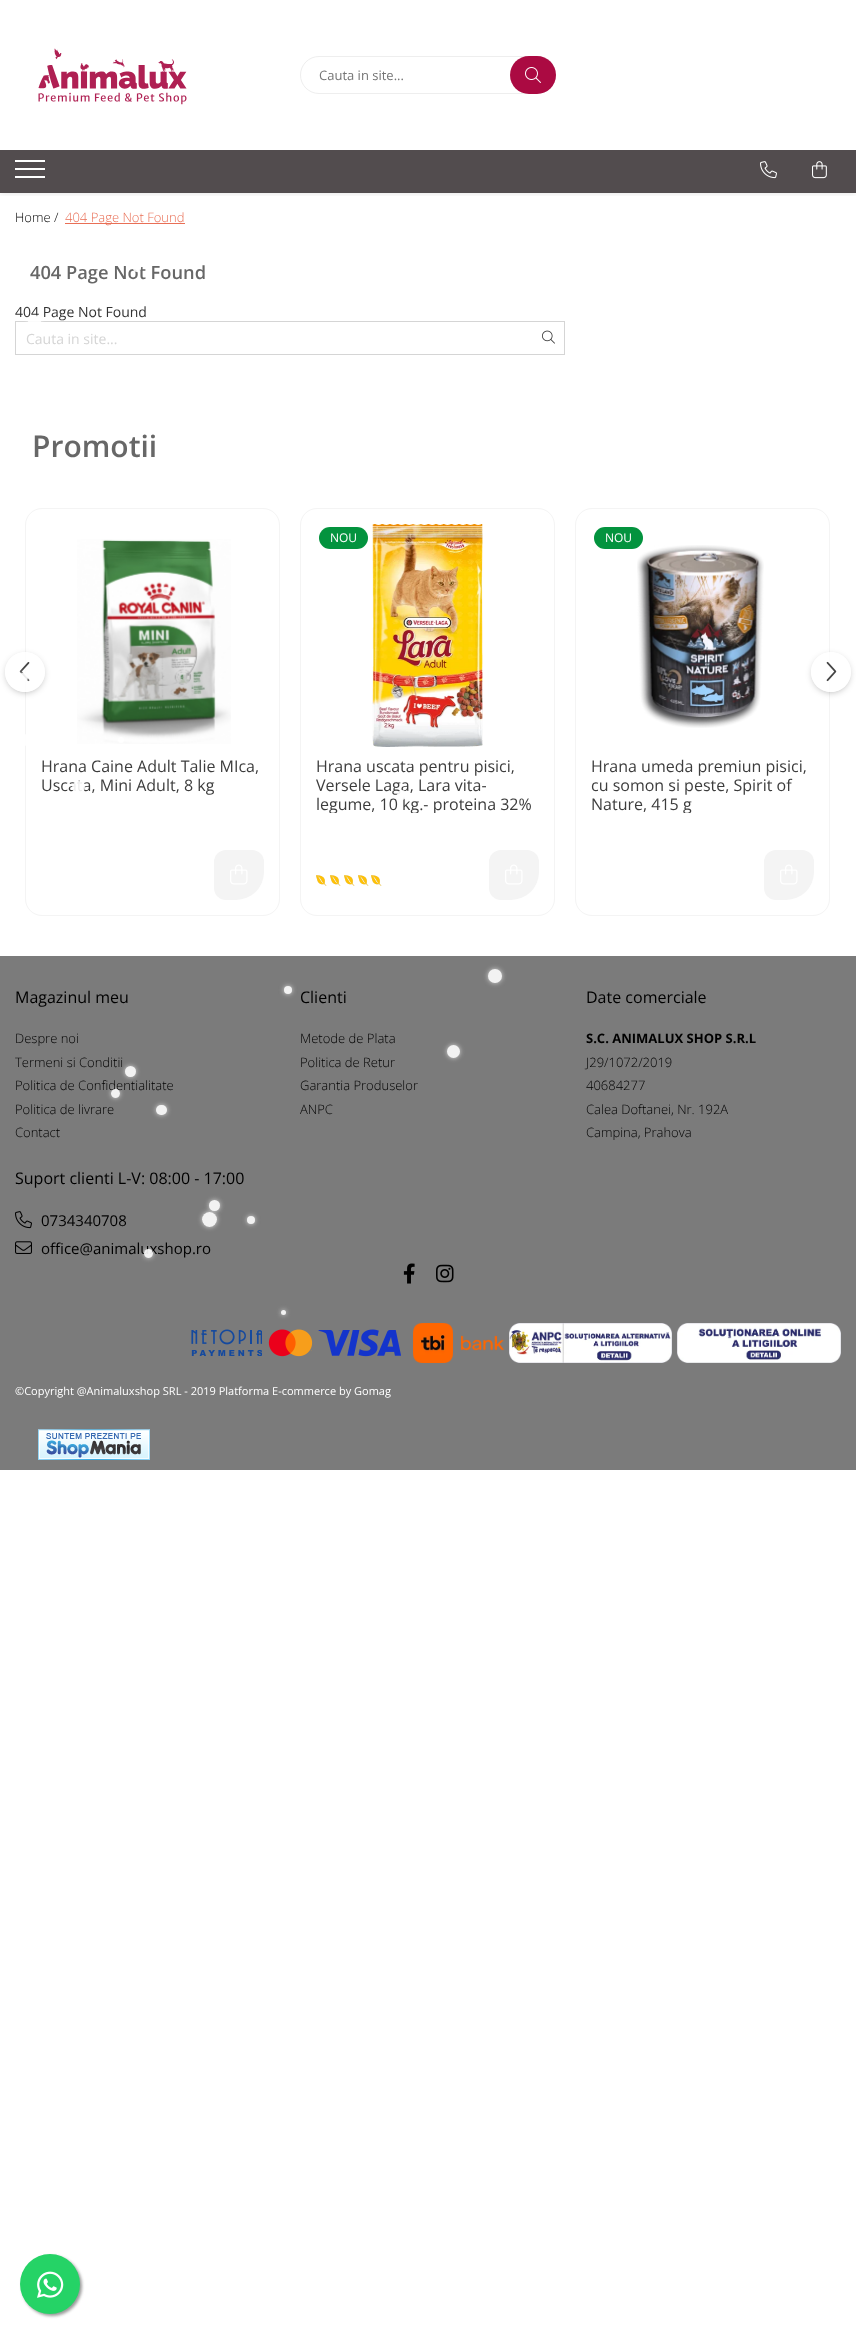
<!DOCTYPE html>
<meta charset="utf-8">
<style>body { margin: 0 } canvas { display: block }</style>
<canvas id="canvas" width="856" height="2334"></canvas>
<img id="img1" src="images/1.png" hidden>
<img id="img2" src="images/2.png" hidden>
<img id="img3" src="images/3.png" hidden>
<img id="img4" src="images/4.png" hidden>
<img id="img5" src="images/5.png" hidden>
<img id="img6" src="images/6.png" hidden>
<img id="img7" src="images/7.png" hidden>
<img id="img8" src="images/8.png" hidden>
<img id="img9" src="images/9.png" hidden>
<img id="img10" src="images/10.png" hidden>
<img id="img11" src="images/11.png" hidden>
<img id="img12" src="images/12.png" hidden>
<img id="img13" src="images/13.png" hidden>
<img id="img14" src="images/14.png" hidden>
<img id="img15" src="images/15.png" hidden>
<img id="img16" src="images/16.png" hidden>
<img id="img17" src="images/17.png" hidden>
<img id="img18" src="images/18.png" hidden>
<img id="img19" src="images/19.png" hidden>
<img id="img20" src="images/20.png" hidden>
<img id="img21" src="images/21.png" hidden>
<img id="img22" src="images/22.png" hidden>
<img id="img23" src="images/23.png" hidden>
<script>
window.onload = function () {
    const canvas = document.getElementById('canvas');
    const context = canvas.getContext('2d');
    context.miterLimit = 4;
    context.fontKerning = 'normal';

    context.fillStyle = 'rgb(255, 255, 255)';
    context.fillRect(0, 0, 856, 2334);
    context.save();
    context.beginPath();
    context.moveTo(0, 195);
    context.lineTo(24, 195);
    context.lineTo(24, 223);
    context.lineTo(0, 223);
    context.closePath();
    context.moveTo(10, 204);
    context.bezierCurveTo(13, 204, 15, 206, 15, 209);
    context.bezierCurveTo(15, 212, 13, 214, 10, 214);
    context.bezierCurveTo(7, 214, 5, 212, 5, 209);
    context.bezierCurveTo(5, 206, 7, 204, 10, 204);
    context.closePath();
    context.clip('evenodd');
    context.fillStyle = 'rgba(255, 255, 255, 0.72)';
    context.filter = 'blur(2.5px)';
    context.beginPath();
    context.roundRect(5, 204, 10, 10, 5);
    context.fill();
    context.filter = 'none';
    context.restore();
    context.save();
    context.beginPath();
    context.rect(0, 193, 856, 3);
    context.clip();
    context.fillStyle = 'rgba(0, 0, 0, 0.12)';
    context.filter = 'blur(3px)';
    context.beginPath();
    context.rect(0, 0, 856, 193);
    context.fill();
    context.filter = 'none';
    context.restore();
    context.drawImage(document.getElementById('img1'), 38, 48, 149, 57);
    context.beginPath();
    context.roundRect(300.5, 56.5, 255, 37, 18.5);
    context.strokeStyle = 'rgb(238, 238, 238)';
    context.stroke();
    context.fillStyle = 'rgb(171, 10, 66)';
    context.beginPath();
    context.roundRect(510, 56, 46, 38, 19);
    context.fill();
    context.drawImage(document.getElementById('img2'), 525, 67, 16, 16);
    context.fillStyle = 'rgb(82, 76, 78)';
    context.fillRect(0, 150, 856, 43);
    context.fillStyle = 'rgb(255, 255, 255)';
    context.fillRect(15, 168, 30, 2);
    context.fillRect(15, 160, 30, 2);
    context.fillRect(15, 176, 30, 2);
    context.drawImage(document.getElementById('img3'), 760, 161, 17, 18);
    context.drawImage(document.getElementById('img4'), 812, 161, 15, 18);
    context.fillStyle = 'rgb(233, 111, 86)';
    context.fillRect(65, 223, 120, 1);
    context.strokeStyle = 'rgb(213, 213, 213)';
    context.strokeRect(15.5, 321.5, 549, 33);
    context.drawImage(document.getElementById('img5'), 542, 330, 13, 14);
    context.beginPath();
    context.roundRect(25.5, 508.5, 254, 407, 16.5);
    context.strokeStyle = 'rgb(244, 244, 244)';
    context.stroke();
    context.drawImage(document.getElementById('img6'), 77, 539, 154, 205);
    context.fillStyle = 'rgb(244, 244, 244)';
    context.beginPath();
    context.roundRect(214, 850, 50, 50, [12, 12, 28, 12]);
    context.fill();
    context.drawImage(document.getElementById('img7'), 230, 864, 18, 21);
    context.beginPath();
    context.roundRect(300.5, 508.5, 254, 407, 16.5);
    context.stroke();
    context.fillStyle = 'rgb(3, 147, 62)';
    context.beginPath();
    context.roundRect(319, 527, 49, 22, 11);
    context.fill();
    context.drawImage(document.getElementById('img8'), 372, 524, 111, 223);
    context.drawImage(document.getElementById('img9'), 316, 875, 11, 11);
    context.drawImage(document.getElementById('img10'), 316, 875, 11, 11);
    context.drawImage(document.getElementById('img9'), 330, 875, 11, 11);
    context.drawImage(document.getElementById('img10'), 330, 875, 11, 11);
    context.drawImage(document.getElementById('img9'), 344, 875, 11, 11);
    context.drawImage(document.getElementById('img10'), 344, 875, 11, 11);
    context.drawImage(document.getElementById('img9'), 358, 875, 11, 11);
    context.drawImage(document.getElementById('img10'), 358, 875, 11, 11);
    context.drawImage(document.getElementById('img9'), 371, 875, 11, 11);
    context.drawImage(document.getElementById('img10'), 371, 875, 11, 11);
    context.fillStyle = 'rgb(244, 244, 244)';
    context.beginPath();
    context.roundRect(489, 850, 50, 50, [12, 12, 28, 12]);
    context.fill();
    context.drawImage(document.getElementById('img7'), 505, 864, 18, 21);
    context.beginPath();
    context.roundRect(575.5, 508.5, 254, 407, 16.5);
    context.stroke();
    context.drawImage(document.getElementById('img11'), 637, 545, 127, 183);
    context.fillStyle = 'rgb(3, 147, 62)';
    context.beginPath();
    context.roundRect(594, 527, 49, 22, 11);
    context.fill();
    context.fillStyle = 'rgb(244, 244, 244)';
    context.beginPath();
    context.roundRect(764, 850, 50, 50, [12, 12, 28, 12]);
    context.fill();
    context.drawImage(document.getElementById('img7'), 780, 864, 18, 21);
    context.save();
    context.beginPath();
    context.moveTo(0, 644);
    context.lineTo(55, 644);
    context.lineTo(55, 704);
    context.lineTo(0, 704);
    context.closePath();
    context.moveTo(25, 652);
    context.bezierCurveTo(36, 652, 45, 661, 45, 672);
    context.bezierCurveTo(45, 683, 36, 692, 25, 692);
    context.bezierCurveTo(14, 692, 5, 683, 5, 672);
    context.bezierCurveTo(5, 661, 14, 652, 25, 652);
    context.closePath();
    context.clip('evenodd');
    context.fillStyle = 'rgba(0, 0, 0, 0.3)';
    context.filter = 'blur(3.5px)';
    context.beginPath();
    context.roundRect(7, 656, 36, 36, 18);
    context.fill();
    context.filter = 'none';
    context.restore();
    context.fillStyle = 'rgba(255, 255, 255, 0.8)';
    context.beginPath();
    context.arc(25, 672, 20, 0, 2 * Math.PI);
    context.fill();
    context.drawImage(document.getElementById('img12'), 19, 662, 11, 20);
    context.save();
    context.beginPath();
    context.moveTo(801, 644);
    context.lineTo(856, 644);
    context.lineTo(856, 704);
    context.lineTo(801, 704);
    context.closePath();
    context.moveTo(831, 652);
    context.bezierCurveTo(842, 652, 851, 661, 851, 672);
    context.bezierCurveTo(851, 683, 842, 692, 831, 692);
    context.bezierCurveTo(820, 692, 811, 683, 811, 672);
    context.bezierCurveTo(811, 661, 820, 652, 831, 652);
    context.closePath();
    context.clip('evenodd');
    context.fillStyle = 'rgba(0, 0, 0, 0.3)';
    context.filter = 'blur(3.5px)';
    context.beginPath();
    context.roundRect(813, 656, 36, 36, 18);
    context.fill();
    context.filter = 'none';
    context.restore();
    context.beginPath();
    context.arc(831, 672, 20, 0, 2 * Math.PI);
    context.fill();
    context.drawImage(document.getElementById('img13'), 826, 661, 11, 21);
    context.fillStyle = 'rgb(123, 123, 123)';
    context.fillRect(0, 956, 856, 514);
    context.drawImage(document.getElementById('img14'), 15, 1211, 17, 18);
    context.drawImage(document.getElementById('img15'), 15, 1241, 17, 13);
    context.drawImage(document.getElementById('img16'), 403, 1263, 12, 21);
    context.drawImage(document.getElementById('img17'), 436, 1264, 18, 19);
    context.drawImage(document.getElementById('img18'), 191, 1329, 210, 28);
    context.drawImage(document.getElementById('img19'), 413, 1323, 91, 40);
    context.drawImage(document.getElementById('img20'), 509, 1323, 163, 40);
    context.drawImage(document.getElementById('img21'), 677, 1323, 164, 40);
    context.drawImage(document.getElementById('img22'), 38, 1429, 112, 31);
    context.save();
    context.beginPath();
    context.moveTo(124, 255);
    context.lineTo(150, 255);
    context.lineTo(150, 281);
    context.lineTo(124, 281);
    context.closePath();
    context.moveTo(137, 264);
    context.bezierCurveTo(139, 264, 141, 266, 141, 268);
    context.bezierCurveTo(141, 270, 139, 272, 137, 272);
    context.bezierCurveTo(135, 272, 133, 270, 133, 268);
    context.bezierCurveTo(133, 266, 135, 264, 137, 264);
    context.closePath();
    context.clip('evenodd');
    context.fillStyle = 'rgba(255, 255, 255, 0.72)';
    context.filter = 'blur(2.5px)';
    context.beginPath();
    context.roundRect(133, 264, 8, 8, 4);
    context.fill();
    context.filter = 'none';
    context.restore();
    context.save();
    context.beginPath();
    context.moveTo(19, 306);
    context.lineTo(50, 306);
    context.lineTo(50, 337);
    context.lineTo(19, 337);
    context.closePath();
    context.moveTo(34.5, 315);
    context.bezierCurveTo(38, 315, 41, 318, 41, 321.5);
    context.bezierCurveTo(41, 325, 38, 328, 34.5, 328);
    context.bezierCurveTo(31, 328, 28, 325, 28, 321.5);
    context.bezierCurveTo(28, 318, 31, 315, 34.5, 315);
    context.closePath();
    context.clip('evenodd');
    context.fillStyle = 'rgba(255, 255, 255, 0.72)';
    context.filter = 'blur(2.5px)';
    context.beginPath();
    context.roundRect(28, 315, 13, 13, 6.5);
    context.fill();
    context.filter = 'none';
    context.restore();
    context.save();
    context.beginPath();
    context.moveTo(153, 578);
    context.lineTo(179, 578);
    context.lineTo(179, 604);
    context.lineTo(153, 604);
    context.closePath();
    context.moveTo(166, 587);
    context.bezierCurveTo(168, 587, 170, 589, 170, 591);
    context.bezierCurveTo(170, 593, 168, 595, 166, 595);
    context.bezierCurveTo(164, 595, 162, 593, 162, 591);
    context.bezierCurveTo(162, 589, 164, 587, 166, 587);
    context.closePath();
    context.clip('evenodd');
    context.fillStyle = 'rgba(255, 255, 255, 0.72)';
    context.filter = 'blur(2.5px)';
    context.beginPath();
    context.roundRect(162, 587, 8, 8, 4);
    context.fill();
    context.filter = 'none';
    context.restore();
    context.fillStyle = 'rgba(255, 255, 255, 0.9)';
    context.beginPath();
    context.arc(166, 591, 4, 0, 2 * Math.PI);
    context.fill();
    context.save();
    context.beginPath();
    context.moveTo(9, 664);
    context.lineTo(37, 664);
    context.lineTo(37, 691);
    context.lineTo(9, 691);
    context.closePath();
    context.moveTo(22.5, 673);
    context.lineTo(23.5, 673);
    context.bezierCurveTo(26, 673, 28, 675, 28, 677.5);
    context.bezierCurveTo(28, 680, 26, 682, 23.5, 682);
    context.lineTo(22.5, 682);
    context.bezierCurveTo(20, 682, 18, 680, 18, 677.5);
    context.bezierCurveTo(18, 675, 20, 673, 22.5, 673);
    context.closePath();
    context.clip('evenodd');
    context.fillStyle = 'rgba(255, 255, 255, 0.72)';
    context.filter = 'blur(2.5px)';
    context.beginPath();
    context.roundRect(18, 673, 10, 9, 4.5);
    context.fill();
    context.filter = 'none';
    context.restore();
    context.beginPath();
    context.roundRect(18, 673, 10, 9, 4.5);
    context.fill();
    context.beginPath();
    context.arc(27, 740, 6, 0, 2 * Math.PI);
    context.fill();
    context.beginPath();
    context.arc(121, 740, 3, 0, 2 * Math.PI);
    context.fill();
    context.save();
    context.beginPath();
    context.moveTo(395, 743);
    context.lineTo(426, 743);
    context.lineTo(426, 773);
    context.lineTo(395, 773);
    context.closePath();
    context.moveTo(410, 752);
    context.lineTo(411, 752);
    context.bezierCurveTo(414.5, 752, 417, 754.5, 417, 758);
    context.bezierCurveTo(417, 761.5, 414.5, 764, 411, 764);
    context.lineTo(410, 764);
    context.bezierCurveTo(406.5, 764, 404, 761.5, 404, 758);
    context.bezierCurveTo(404, 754.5, 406.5, 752, 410, 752);
    context.closePath();
    context.clip('evenodd');
    context.fillStyle = 'rgba(255, 255, 255, 0.72)';
    context.filter = 'blur(2.5px)';
    context.beginPath();
    context.roundRect(404, 752, 13, 12, 6);
    context.fill();
    context.filter = 'none';
    context.restore();
    context.save();
    context.beginPath();
    context.moveTo(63, 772);
    context.lineTo(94, 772);
    context.lineTo(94, 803);
    context.lineTo(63, 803);
    context.closePath();
    context.moveTo(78.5, 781);
    context.bezierCurveTo(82, 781, 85, 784, 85, 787.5);
    context.bezierCurveTo(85, 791, 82, 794, 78.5, 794);
    context.bezierCurveTo(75, 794, 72, 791, 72, 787.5);
    context.bezierCurveTo(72, 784, 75, 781, 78.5, 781);
    context.closePath();
    context.clip('evenodd');
    context.fillStyle = 'rgba(255, 255, 255, 0.72)';
    context.filter = 'blur(2.5px)';
    context.beginPath();
    context.roundRect(72, 781, 13, 13, 6.5);
    context.fill();
    context.filter = 'none';
    context.restore();
    context.save();
    context.beginPath();
    context.moveTo(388, 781);
    context.lineTo(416, 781);
    context.lineTo(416, 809);
    context.lineTo(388, 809);
    context.closePath();
    context.moveTo(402, 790);
    context.bezierCurveTo(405, 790, 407, 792, 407, 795);
    context.bezierCurveTo(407, 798, 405, 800, 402, 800);
    context.bezierCurveTo(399, 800, 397, 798, 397, 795);
    context.bezierCurveTo(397, 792, 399, 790, 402, 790);
    context.closePath();
    context.clip('evenodd');
    context.fillStyle = 'rgba(255, 255, 255, 0.72)';
    context.filter = 'blur(2.5px)';
    context.beginPath();
    context.roundRect(397, 790, 10, 10, 5);
    context.fill();
    context.filter = 'none';
    context.restore();
    context.fillStyle = 'rgba(242, 242, 242, 0.8)';
    context.filter = 'blur(2.5px)';
    context.beginPath();
    context.roundRect(284, 986, 8, 8, 4);
    context.fill();
    context.filter = 'none';
    context.fillStyle = 'rgb(242, 242, 242)';
    context.beginPath();
    context.arc(288, 990, 4, 0, 2 * Math.PI);
    context.fill();
    context.fillStyle = 'rgba(242, 242, 242, 0.8)';
    context.filter = 'blur(2.5px)';
    context.beginPath();
    context.roundRect(488, 969, 14, 14, 7);
    context.fill();
    context.filter = 'none';
    context.fillStyle = 'rgb(242, 242, 242)';
    context.beginPath();
    context.arc(495, 976, 7, 0, 2 * Math.PI);
    context.fill();
    context.fillStyle = 'rgba(242, 242, 242, 0.8)';
    context.filter = 'blur(2.5px)';
    context.beginPath();
    context.roundRect(447, 1045, 13, 13, 6.5);
    context.fill();
    context.filter = 'none';
    context.fillStyle = 'rgb(242, 242, 242)';
    context.beginPath();
    context.arc(453.5, 1051.5, 6.5, 0, 2 * Math.PI);
    context.fill();
    context.fillStyle = 'rgba(255, 255, 255, 0.72)';
    context.filter = 'blur(2.5px)';
    context.beginPath();
    context.roundRect(125, 1066, 11, 11, 5.5);
    context.fill();
    context.filter = 'none';
    context.fillStyle = 'rgb(242, 242, 242)';
    context.beginPath();
    context.arc(130.5, 1071.5, 5.5, 0, 2 * Math.PI);
    context.fill();
    context.save();
    context.beginPath();
    context.moveTo(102, 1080);
    context.lineTo(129, 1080);
    context.lineTo(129, 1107);
    context.lineTo(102, 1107);
    context.closePath();
    context.moveTo(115.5, 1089);
    context.bezierCurveTo(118, 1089, 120, 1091, 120, 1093.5);
    context.bezierCurveTo(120, 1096, 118, 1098, 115.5, 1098);
    context.bezierCurveTo(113, 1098, 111, 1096, 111, 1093.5);
    context.bezierCurveTo(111, 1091, 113, 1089, 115.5, 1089);
    context.closePath();
    context.clip('evenodd');
    context.fillStyle = 'rgba(255, 255, 255, 0.72)';
    context.filter = 'blur(2.5px)';
    context.beginPath();
    context.roundRect(111, 1089, 9, 9, 4.5);
    context.fill();
    context.filter = 'none';
    context.restore();
    context.fillStyle = 'rgba(242, 242, 242, 0.8)';
    context.filter = 'blur(2.5px)';
    context.beginPath();
    context.roundRect(156, 1105, 11, 10, 5);
    context.fill();
    context.filter = 'none';
    context.fillStyle = 'rgb(242, 242, 242)';
    context.beginPath();
    context.roundRect(156, 1105, 11, 10, 5);
    context.fill();
    context.fillStyle = 'rgba(242, 242, 242, 0.8)';
    context.filter = 'blur(2.5px)';
    context.beginPath();
    context.roundRect(209, 1200, 11, 11, 5.5);
    context.fill();
    context.filter = 'none';
    context.fillStyle = 'rgb(242, 242, 242)';
    context.beginPath();
    context.arc(214.5, 1205.5, 5.5, 0, 2 * Math.PI);
    context.fill();
    context.save();
    context.beginPath();
    context.moveTo(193, 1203);
    context.lineTo(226, 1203);
    context.lineTo(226, 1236);
    context.lineTo(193, 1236);
    context.closePath();
    context.moveTo(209.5, 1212);
    context.bezierCurveTo(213.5, 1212, 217, 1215.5, 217, 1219.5);
    context.bezierCurveTo(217, 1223.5, 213.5, 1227, 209.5, 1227);
    context.bezierCurveTo(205.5, 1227, 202, 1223.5, 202, 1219.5);
    context.bezierCurveTo(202, 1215.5, 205.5, 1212, 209.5, 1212);
    context.closePath();
    context.clip('evenodd');
    context.fillStyle = 'rgba(255, 255, 255, 0.72)';
    context.filter = 'blur(2.5px)';
    context.beginPath();
    context.roundRect(202, 1212, 15, 15, 7.5);
    context.fill();
    context.filter = 'none';
    context.restore();
    context.fillStyle = 'rgba(255, 255, 255, 0.9)';
    context.beginPath();
    context.arc(209.5, 1219.5, 7.5, 0, 2 * Math.PI);
    context.fill();
    context.fillStyle = 'rgba(242, 242, 242, 0.8)';
    context.filter = 'blur(2.5px)';
    context.beginPath();
    context.roundRect(247, 1216, 8, 8, 4);
    context.fill();
    context.filter = 'none';
    context.fillStyle = 'rgb(242, 242, 242)';
    context.beginPath();
    context.arc(251, 1220, 4, 0, 2 * Math.PI);
    context.fill();
    context.save();
    context.beginPath();
    context.moveTo(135, 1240);
    context.lineTo(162, 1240);
    context.lineTo(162, 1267);
    context.lineTo(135, 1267);
    context.closePath();
    context.moveTo(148.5, 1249);
    context.bezierCurveTo(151, 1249, 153, 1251, 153, 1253.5);
    context.bezierCurveTo(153, 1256, 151, 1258, 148.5, 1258);
    context.bezierCurveTo(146, 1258, 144, 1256, 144, 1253.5);
    context.bezierCurveTo(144, 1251, 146, 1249, 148.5, 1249);
    context.closePath();
    context.clip('evenodd');
    context.fillStyle = 'rgba(255, 255, 255, 0.72)';
    context.filter = 'blur(2.5px)';
    context.beginPath();
    context.roundRect(144, 1249, 9, 9, 4.5);
    context.fill();
    context.filter = 'none';
    context.restore();
    context.fillStyle = 'rgba(242, 242, 242, 0.8)';
    context.filter = 'blur(2.5px)';
    context.beginPath();
    context.roundRect(281, 1310, 5, 5, 2.5);
    context.fill();
    context.filter = 'none';
    context.fillStyle = 'rgb(242, 242, 242)';
    context.beginPath();
    context.arc(283.5, 1312.5, 2.5, 0, 2 * Math.PI);
    context.fill();
    context.fillStyle = 'rgb(153, 153, 153)';
    context.filter = 'blur(1.5px)';
    context.beginPath();
    context.roundRect(22, 2256, 60, 60, 30);
    context.fill();
    context.filter = 'none';
    context.fillStyle = 'rgb(37, 211, 102)';
    context.beginPath();
    context.arc(50, 2284, 30, 0, 2 * Math.PI);
    context.fill();
    context.drawImage(document.getElementById('img23'), 37, 2271, 27, 27);
    context.font = '13px Open Sans';
    context.fillStyle = 'rgb(117, 117, 117)';
    context.fillText('Cauta in site...', 319, 80);
    context.font = '300 13px Open Sans';
    context.fillStyle = 'rgb(0, 0, 0)';
    context.fillText('Home /', 15, 222);
    context.fillStyle = 'rgb(233, 111, 86)';
    context.fillText('404 Page Not Found', 65, 222);
    context.font = '600 18.25px Open Sans';
    context.fillStyle = 'rgb(103, 103, 103)';
    context.fillText('404 Page Not Found', 30, 279);
    context.font = '14px Open Sans';
    context.fillStyle = 'rgb(51, 51, 51)';
    context.fillText('404 Page Not Found', 15, 317);
    context.fillStyle = 'rgb(213, 213, 213)';
    context.fillText('Cauta in site...', 26, 344);
    context.font = '600 30px Open Sans';
    context.fillStyle = 'rgb(103, 103, 103)';
    context.fillText('Promotii', 32, 457);
    context.font = '16px Open Sans';
    context.fillStyle = 'rgb(61, 61, 61)';
    context.fillText('Hrana Caine Adult Talie MIca,', 41, 772);
    context.fillText('Uscata, Mini Adult, 8 kg', 41, 791);
    context.font = '12px Open Sans';
    context.fillStyle = 'rgb(255, 255, 255)';
    context.fillText('NOU', 330, 542);
    context.font = '16px Open Sans';
    context.fillStyle = 'rgb(61, 61, 61)';
    context.fillText('Hrana uscata pentru pisici,', 316, 772);
    context.fillText('Versele Laga, Lara vita-', 316, 791);
    context.save();
    context.beginPath();
    context.rect(316, 757, 223, 56);
    context.clip();
    context.fillText('legume, 10 kg.- proteina 32%', 316, 810);
    context.restore();
    context.font = '12px Open Sans';
    context.fillStyle = 'rgb(255, 255, 255)';
    context.fillText('NOU', 605, 542);
    context.font = '16px Open Sans';
    context.fillStyle = 'rgb(61, 61, 61)';
    context.fillText('Hrana umeda premiun pisici,', 591, 772);
    context.fillText('cu somon si peste, Spirit of', 591, 791);
    context.save();
    context.beginPath();
    context.rect(591, 757, 223, 56);
    context.clip();
    context.fillText('Nature, 415 g', 591, 810);
    context.restore();
    context.fillStyle = 'rgb(0, 0, 0)';
    context.fillText('Magazinul meu', 15, 1003);
    context.font = '300 13px Open Sans';
    context.fillText('Despre noi', 15, 1043);
    context.fillText('Termeni si Conditii', 15, 1067);
    context.fillText('Politica de Confidentialitate', 15, 1090);
    context.fillText('Politica de livrare', 15, 1114);
    context.fillText('Contact', 15, 1137);
    context.font = '16px Open Sans';
    context.fillText('Clienti', 300, 1003);
    context.font = '300 13px Open Sans';
    context.fillText('Metode de Plata', 300, 1043);
    context.fillText('Politica de Retur', 300, 1067);
    context.fillText('Garantia Produselor', 300, 1090);
    context.fillText('ANPC', 300, 1114);
    context.font = '16px Open Sans';
    context.fillText('Date comerciale', 586, 1003);
    context.font = 'bold 13px Open Sans';
    context.fillText('S.C. ANIMALUX SHOP S.R.L', 586, 1043);
    context.font = '300 13px Open Sans';
    context.fillText('J29/1072/2019', 586, 1067);
    context.fillText('40684277', 586, 1090);
    context.fillText('Calea Doftanei, Nr. 192A', 586, 1114);
    context.fillText('Campina, Prahova', 586, 1137);
    context.font = '16px Open Sans';
    context.fillText('Suport clienti L-V: 08:00 - 17:00', 15, 1184);
    context.font = '15px Open Sans';
    context.fillText('0734340708', 41, 1226);
    context.fillText('office@animaluxshop.ro', 41, 1254);
    context.font = '11px Open Sans';
    context.fillStyle = 'rgb(255, 255, 255)';
    context.fillText('©Copyright @Animaluxshop SRL - 2019 Platforma E-commerce by Gomag', 15, 1395);
    context.fillStyle = 'rgba(255, 255, 255, 0.9)';
    context.beginPath();
    context.arc(137, 268, 4, 0, 2 * Math.PI);
    context.fill();
    context.beginPath();
    context.arc(34.5, 321.5, 6.5, 0, 2 * Math.PI);
    context.fill();
    context.beginPath();
    context.roundRect(404, 752, 13, 12, 6);
    context.fill();
    context.beginPath();
    context.arc(78.5, 787.5, 6.5, 0, 2 * Math.PI);
    context.fill();
    context.beginPath();
    context.arc(402, 795, 5, 0, 2 * Math.PI);
    context.fill();
    context.beginPath();
    context.arc(115.5, 1093.5, 4.5, 0, 2 * Math.PI);
    context.fill();
    context.beginPath();
    context.arc(148.5, 1253.5, 4.5, 0, 2 * Math.PI);
    context.fill();
};
</script>
